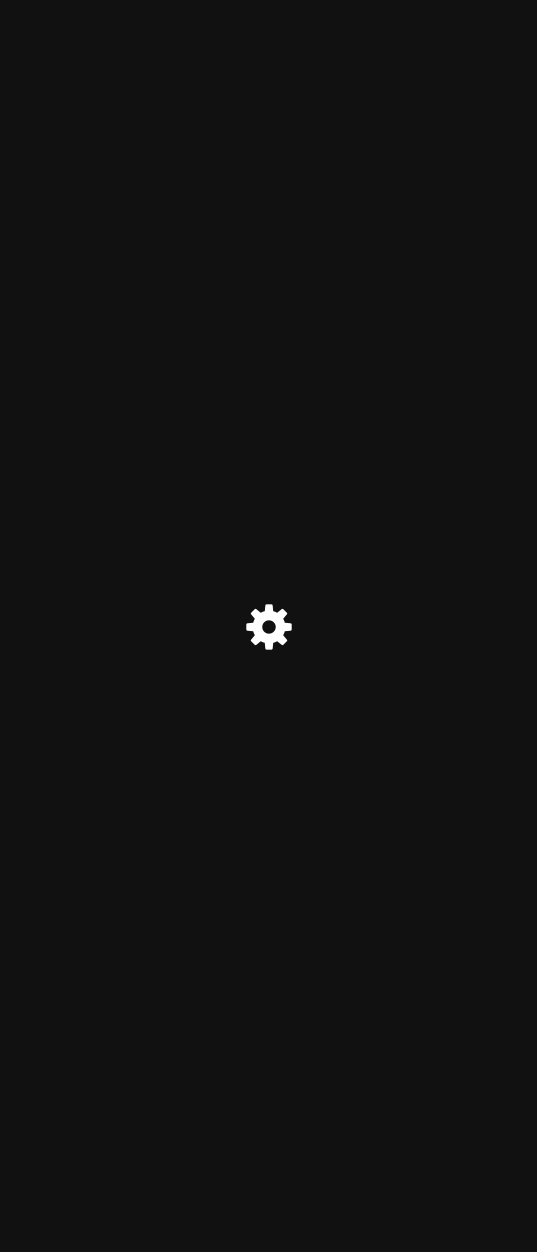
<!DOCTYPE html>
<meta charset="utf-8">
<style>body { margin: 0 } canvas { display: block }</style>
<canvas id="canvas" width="537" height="1252"></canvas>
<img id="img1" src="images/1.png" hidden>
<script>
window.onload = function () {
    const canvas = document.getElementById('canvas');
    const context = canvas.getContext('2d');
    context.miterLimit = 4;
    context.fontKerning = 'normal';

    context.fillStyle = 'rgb(17, 17, 17)';
    context.fillRect(0, 0, 537, 1252);
    context.drawImage(document.getElementById('img1'), 246, 604, 46, 46);
};
</script>
